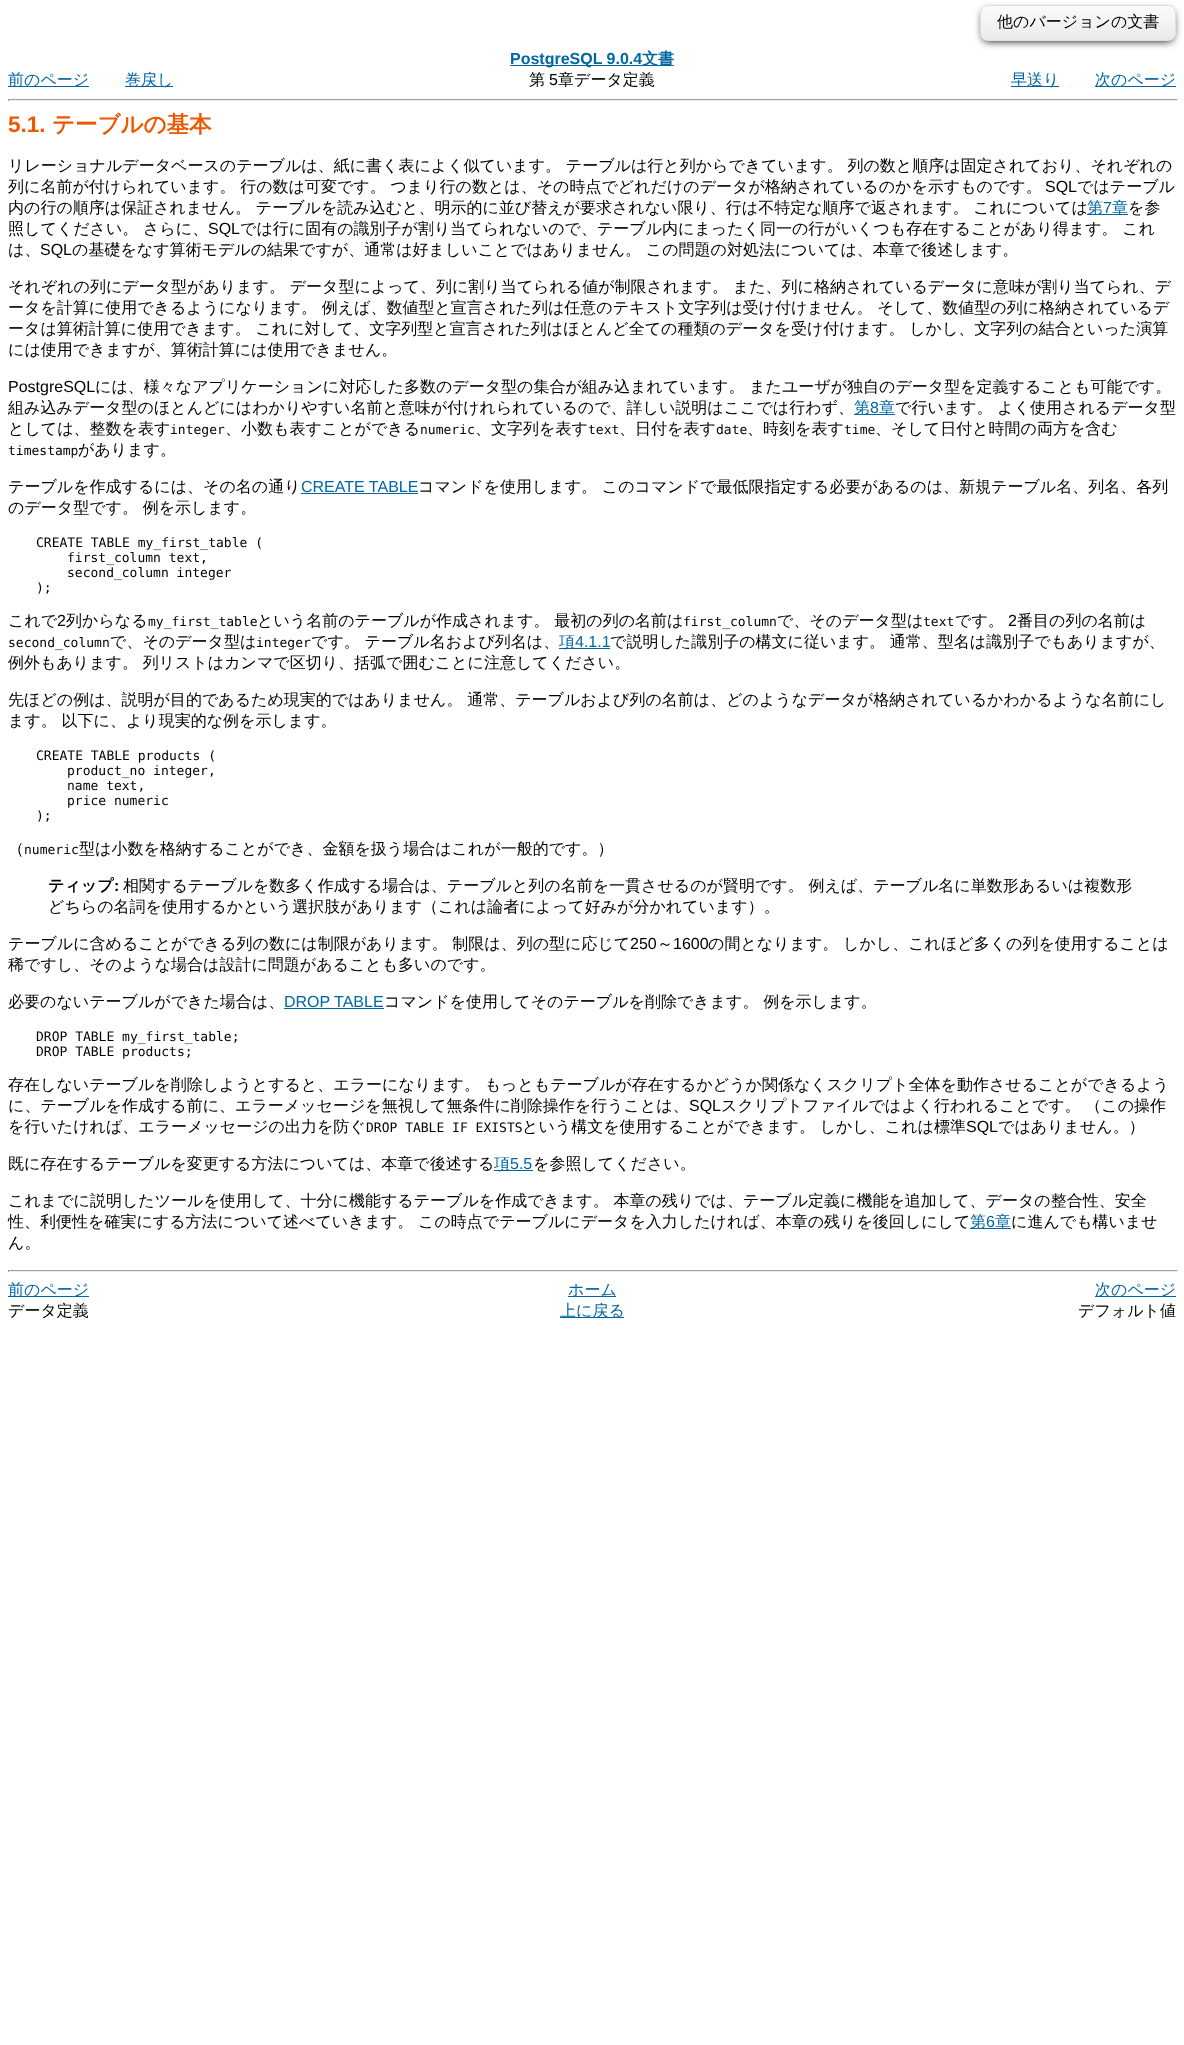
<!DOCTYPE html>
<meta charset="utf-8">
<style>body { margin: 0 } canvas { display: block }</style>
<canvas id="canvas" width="1184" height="2045"></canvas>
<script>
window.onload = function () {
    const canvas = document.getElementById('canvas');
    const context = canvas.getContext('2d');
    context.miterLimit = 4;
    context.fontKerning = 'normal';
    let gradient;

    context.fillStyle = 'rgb(255, 255, 255)';
    context.fillRect(0, 0, 1184, 2045);
    context.fillStyle = 'rgb(0, 0, 0)';
    context.filter = 'blur(4px)';
    context.beginPath();
    context.roundRect(983, 11, 190, 30, 5);
    context.fill();
    context.filter = 'none';
    context.save();
    context.beginPath();
    context.roundRect(980, 5, 196, 36, 8);
    context.clip();
    gradient = context.createLinearGradient(1078, 6, 1078, 40);
    gradient.addColorStop(0, 'rgb(251, 251, 251)');
    gradient.addColorStop(1, 'rgb(235, 235, 235)');
    context.fillStyle = gradient;
    context.fillRect(980, 6, 196, 34);
    context.restore();
    context.beginPath();
    context.roundRect(980.5, 5.5, 195, 35, 7.5);
    context.strokeStyle = 'rgb(224, 224, 224)';
    context.stroke();
    context.fillStyle = 'rgb(0, 102, 162)';
    context.fillRect(510, 65, 164, 1);
    context.fillRect(8, 86, 81, 1);
    context.fillRect(125, 86, 48, 1);
    context.fillRect(1011, 86, 48, 1);
    context.fillRect(1095, 86, 81, 1);
    context.fillStyle = 'rgb(159, 159, 159)';
    context.fillRect(8, 99, 1170, 1);
    context.fillStyle = 'rgb(238, 238, 238)';
    context.fillRect(1177, 99, 1, 2);
    context.fillRect(8, 100, 1170, 1);
    context.fillStyle = 'rgb(159, 159, 159)';
    context.fillRect(8, 99, 1, 2);
    context.fillStyle = 'rgb(0, 102, 162)';
    context.fillRect(1087, 214, 41, 1);
    context.fillRect(854, 414, 41, 1);
    context.fillRect(301, 493, 117, 1);
    context.fillRect(559, 648, 51, 1);
    context.fillRect(284, 1008, 100, 1);
    context.fillRect(494, 1170, 39, 1);
    context.fillRect(970, 1228, 41, 1);
    context.fillStyle = 'rgb(159, 159, 159)';
    context.fillRect(8, 1270, 1170, 1);
    context.fillStyle = 'rgb(238, 238, 238)';
    context.fillRect(1177, 1270, 1, 2);
    context.fillRect(8, 1271, 1170, 1);
    context.fillStyle = 'rgb(159, 159, 159)';
    context.fillRect(8, 1270, 1, 2);
    context.fillStyle = 'rgb(0, 102, 162)';
    context.fillRect(8, 1296, 81, 1);
    context.fillRect(568, 1296, 48, 1);
    context.fillRect(1095, 1296, 81, 1);
    context.fillRect(560, 1317, 64, 1);
    context.font = '500 16px WenQuanYi Zen Hei';
    context.fillStyle = 'rgb(0, 0, 0)';
    context.fillText('他のバージョンの文書', 997, 27);
    context.font = 'bold 16px Liberation Sans';
    context.fillStyle = 'rgb(0, 102, 162)';
    context.fillText('PostgreSQL 9.0.4', 510, 64);
    context.font = 'bold 16px WenQuanYi Zen Hei';
    context.fillText('文書', 642, 64);
    context.font = '500 16px WenQuanYi Zen Hei';
    context.fillText('前のページ', 8, 85);
    context.fillText('巻戻し', 125, 85);
    context.fillStyle = 'rgb(0, 0, 0)';
    context.fillText('第', 529, 85);
    context.font = '16px Liberation Sans';
    context.fillText('5', 549, 85);
    context.font = '500 16px WenQuanYi Zen Hei';
    context.fillText('章データ定義', 558, 85);
    context.fillStyle = 'rgb(0, 102, 162)';
    context.fillText('早送り', 1011, 85);
    context.fillText('次のページ', 1095, 85);
    context.font = 'bold 22.5px Liberation Sans';
    context.fillStyle = 'rgb(236, 88, 0)';
    context.fillText('5.1.', 8, 132);
    context.font = 'bold 22.5px WenQuanYi Zen Hei';
    context.fillText('テーブルの基本', 52, 132);
    context.font = '500 16px WenQuanYi Zen Hei';
    context.fillStyle = 'rgb(0, 0, 0)';
    context.fillText('リレーショナルデータベースのテーブルは、紙に書く表によく似ています。 テーブルは行と列からできています。 列の数と順序は固定されており、それぞれの', 8, 171);
    context.fillText('列に名前が付けられています。 行の数は可変です。 つまり行の数とは、その時点でどれだけのデータが格納されているのかを示すものです。', 8, 192);
    context.font = '16px Liberation Sans';
    context.fillText('SQL', 1045, 192);
    context.font = '500 16px WenQuanYi Zen Hei';
    context.fillText('ではテーブル', 1077, 192);
    context.fillText('内の行の順序は保証されません。 テーブルを読み込むと、明示的に並び替えが要求されない限り、行は不特定な順序で返されます。 これについては', 8, 213);
    context.fillStyle = 'rgb(0, 102, 162)';
    context.fillText('第', 1087, 213);
    context.font = '16px Liberation Sans';
    context.fillText('7', 1103, 213);
    context.font = '500 16px WenQuanYi Zen Hei';
    context.fillText('章', 1112, 213);
    context.fillStyle = 'rgb(0, 0, 0)';
    context.fillText('を参', 1128, 213);
    context.fillText('照してください。 さらに、', 8, 234);
    context.font = '16px Liberation Sans';
    context.fillText('SQL', 208, 234);
    context.font = '500 16px WenQuanYi Zen Hei';
    context.fillText('では行に固有の識別子が割り当てられないので、テーブル内にまったく同一の行がいくつも存在することがあり得ます。 これ', 240, 234);
    context.fillText('は、', 8, 255);
    context.font = '16px Liberation Sans';
    context.fillText('SQL', 40, 255);
    context.font = '500 16px WenQuanYi Zen Hei';
    context.fillText('の基礎をなす算術モデルの結果ですが、通常は好ましいことではありません。 この問題の対処法については、本章で後述します。', 72, 255);
    context.fillText('それぞれの列にデータ型があります。 データ型によって、列に割り当てられる値が制限されます。 また、列に格納されているデータに意味が割り当てられ、デ', 8, 292);
    context.fillText('ータを計算に使用できるようになります。 例えば、数値型と宣言された列は任意のテキスト文字列は受け付けません。 そして、数値型の列に格納されているデ', 8, 313);
    context.fillText('ータは算術計算に使用できます。 これに対して、文字列型と宣言された列はほとんど全ての種類のデータを受け付けます。 しかし、文字列の結合といった演算', 8, 334);
    context.fillText('には使用できますが、算術計算には使用できません。', 8, 355);
    context.font = '16px Liberation Sans';
    context.fillText('PostgreSQL', 8, 392);
    context.font = '500 16px WenQuanYi Zen Hei';
    context.fillText('には、様々なアプリケーションに対応した多数のデータ型の集合が組み込まれています。 またユーザが独自のデータ型を定義することも可能です。', 95, 392);
    context.fillText('組み込みデータ型のほとんどにはわかりやすい名前と意味が付けれられているので、詳しい説明はここでは行わず、', 8, 413);
    context.fillStyle = 'rgb(0, 102, 162)';
    context.fillText('第', 854, 413);
    context.font = '16px Liberation Sans';
    context.fillText('8', 870, 413);
    context.font = '500 16px WenQuanYi Zen Hei';
    context.fillText('章', 879, 413);
    context.fillStyle = 'rgb(0, 0, 0)';
    context.fillText('で行います。 よく使用されるデータ型', 895, 413);
    context.fillText('としては、整数を表す', 8, 434);
    context.font = '13px DejaVu Sans Mono';
    context.fillText('integer', 170, 434);
    context.font = '500 16px WenQuanYi Zen Hei';
    context.fillText('、小数も表すことができる', 225, 434);
    context.font = '13px DejaVu Sans Mono';
    context.fillText('numeric', 420, 434);
    context.font = '500 16px WenQuanYi Zen Hei';
    context.fillText('、文字列を表す', 475, 434);
    context.font = '13px DejaVu Sans Mono';
    context.fillText('text', 588, 434);
    context.font = '500 16px WenQuanYi Zen Hei';
    context.fillText('、日付を表す', 619, 434);
    context.font = '13px DejaVu Sans Mono';
    context.fillText('date', 716, 434);
    context.font = '500 16px WenQuanYi Zen Hei';
    context.fillText('、時刻を表す', 747, 434);
    context.font = '13px DejaVu Sans Mono';
    context.fillText('time', 844, 434);
    context.font = '500 16px WenQuanYi Zen Hei';
    context.fillText('、そして日付と時間の両方を含む', 875, 434);
    context.font = '13px DejaVu Sans Mono';
    context.fillText('timestamp', 8, 455);
    context.font = '500 16px WenQuanYi Zen Hei';
    context.fillText('があります。', 78, 455);
    context.fillText('テーブルを作成するには、その名の通り', 8, 492);
    context.font = '16px Liberation Sans';
    context.fillStyle = 'rgb(0, 102, 162)';
    context.fillText('CREATE TABLE', 301, 492);
    context.font = '500 16px WenQuanYi Zen Hei';
    context.fillStyle = 'rgb(0, 0, 0)';
    context.fillText('コマンドを使用します。 このコマンドで最低限指定する必要があるのは、新規テーブル名、列名、各列', 418, 492);
    context.fillText('のデータ型です。 例を示します。', 8, 513);
    context.font = '13px DejaVu Sans Mono';
    context.fillText('CREATE TABLE my_first_table (', 36, 547);
    context.fillText('first_column text,', 67, 562);
    context.fillText('second_column integer', 67, 577);
    context.fillText(');', 36, 592);
    context.font = '500 16px WenQuanYi Zen Hei';
    context.fillText('これで', 8, 626);
    context.font = '16px Liberation Sans';
    context.fillText('2', 57, 626);
    context.font = '500 16px WenQuanYi Zen Hei';
    context.fillText('列からなる', 66, 626);
    context.font = '13px DejaVu Sans Mono';
    context.fillText('my_first_table', 148, 626);
    context.font = '500 16px WenQuanYi Zen Hei';
    context.fillText('という名前のテーブルが作成されます。 最初の列の名前は', 257, 626);
    context.font = '13px DejaVu Sans Mono';
    context.fillText('first_column', 683, 626);
    context.font = '500 16px WenQuanYi Zen Hei';
    context.fillText('で、そのデータ型は', 777, 626);
    context.font = '13px DejaVu Sans Mono';
    context.fillText('text', 923, 626);
    context.font = '500 16px WenQuanYi Zen Hei';
    context.fillText('です。', 955, 626);
    context.font = '16px Liberation Sans';
    context.fillText('2', 1008, 626);
    context.font = '500 16px WenQuanYi Zen Hei';
    context.fillText('番目の列の名前は', 1017, 626);
    context.font = '13px DejaVu Sans Mono';
    context.fillText('second_column', 8, 647);
    context.font = '500 16px WenQuanYi Zen Hei';
    context.fillText('で、そのデータ型は', 110, 647);
    context.font = '13px DejaVu Sans Mono';
    context.fillText('integer', 256, 647);
    context.font = '500 16px WenQuanYi Zen Hei';
    context.fillText('です。 テーブル名および列名は、', 311, 647);
    context.fillStyle = 'rgb(0, 102, 162)';
    context.fillText('項', 559, 647);
    context.font = '16px Liberation Sans';
    context.fillText('4.1.1', 575, 647);
    context.font = '500 16px WenQuanYi Zen Hei';
    context.fillStyle = 'rgb(0, 0, 0)';
    context.fillText('で説明した識別子の構文に従います。 通常、型名は識別子でもありますが、', 610, 647);
    context.fillText('例外もあります。 列リストはカンマで区切り、括弧で囲むことに注意してください。', 8, 668);
    context.fillText('先ほどの例は、説明が目的であるため現実的ではありません。 通常、テーブルおよび列の名前は、どのようなデータが格納されているかわかるような名前にし', 8, 705);
    context.fillText('ます。 以下に、より現実的な例を示します。', 8, 726);
    context.font = '13px DejaVu Sans Mono';
    context.fillText('CREATE TABLE products (', 36, 760);
    context.fillText('product_no integer,', 67, 775);
    context.fillText('name text,', 67, 790);
    context.fillText('price numeric', 67, 805);
    context.fillText(');', 36, 820);
    context.font = '500 16px WenQuanYi Zen Hei';
    context.fillText('（', 8, 854);
    context.font = '13px DejaVu Sans Mono';
    context.fillText('numeric', 24, 854);
    context.font = '500 16px WenQuanYi Zen Hei';
    context.fillText('型は小数を格納することができ、金額を扱う場合はこれが一般的です。）', 79, 854);
    context.font = 'bold 16px WenQuanYi Zen Hei';
    context.fillText('ティップ', 48, 891);
    context.font = 'bold 16px Liberation Sans';
    context.fillText(':', 114, 891);
    context.font = '500 16px WenQuanYi Zen Hei';
    context.fillText('相関するテーブルを数多く作成する場合は、テーブルと列の名前を一貫させるのが賢明です。 例えば、テーブル名に単数形あるいは複数形', 123, 891);
    context.fillText('どちらの名詞を使用するかという選択肢があります（これは論者によって好みが分かれています）。', 48, 912);
    context.fillText('テーブルに含めることができる列の数には制限があります。 制限は、列の型に応じて', 8, 949);
    context.font = '16px Liberation Sans';
    context.fillText('250', 630, 949);
    context.font = '500 16px WenQuanYi Zen Hei';
    context.fillText('～', 657, 949);
    context.font = '16px Liberation Sans';
    context.fillText('1600', 673, 949);
    context.font = '500 16px WenQuanYi Zen Hei';
    context.fillText('の間となります。 しかし、これほど多くの列を使用することは', 708, 949);
    context.fillText('稀ですし、そのような場合は設計に問題があることも多いのです。', 8, 970);
    context.fillText('必要のないテーブルができた場合は、', 8, 1007);
    context.font = '16px Liberation Sans';
    context.fillStyle = 'rgb(0, 102, 162)';
    context.fillText('DROP TABLE', 284, 1007);
    context.font = '500 16px WenQuanYi Zen Hei';
    context.fillStyle = 'rgb(0, 0, 0)';
    context.fillText('コマンドを使用してそのテーブルを削除できます。 例を示します。', 384, 1007);
    context.font = '13px DejaVu Sans Mono';
    context.fillText('DROP TABLE my_first_table;', 36, 1041);
    context.fillText('DROP TABLE products;', 36, 1056);
    context.font = '500 16px WenQuanYi Zen Hei';
    context.fillText('存在しないテーブルを削除しようとすると、エラーになります。 もっともテーブルが存在するかどうか関係なくスクリプト全体を動作させることができるよう', 8, 1090);
    context.fillText('に、テーブルを作成する前に、エラーメッセージを無視して無条件に削除操作を行うことは、', 8, 1111);
    context.font = '16px Liberation Sans';
    context.fillText('SQL', 689, 1111);
    context.font = '500 16px WenQuanYi Zen Hei';
    context.fillText('スクリプトファイルではよく行われることです。 （この操作', 721, 1111);
    context.fillText('を行いたければ、エラーメッセージの出力を防ぐ', 8, 1132);
    context.font = '13px DejaVu Sans Mono';
    context.fillText('DROP TABLE IF EXISTS', 366, 1132);
    context.font = '500 16px WenQuanYi Zen Hei';
    context.fillText('という構文を使用することができます。 しかし、これは標準', 522, 1132);
    context.font = '16px Liberation Sans';
    context.fillText('SQL', 966, 1132);
    context.font = '500 16px WenQuanYi Zen Hei';
    context.fillText('ではありません。）', 998, 1132);
    context.fillText('既に存在するテーブルを変更する方法については、本章で後述する', 8, 1169);
    context.fillStyle = 'rgb(0, 102, 162)';
    context.fillText('項', 494, 1169);
    context.font = '16px Liberation Sans';
    context.fillText('5.5', 510, 1169);
    context.font = '500 16px WenQuanYi Zen Hei';
    context.fillStyle = 'rgb(0, 0, 0)';
    context.fillText('を参照してください。', 533, 1169);
    context.fillText('これまでに説明したツールを使用して、十分に機能するテーブルを作成できます。 本章の残りでは、テーブル定義に機能を追加して、データの整合性、安全', 8, 1206);
    context.fillText('性、利便性を確実にする方法について述べていきます。 この時点でテーブルにデータを入力したければ、本章の残りを後回しにして', 8, 1227);
    context.fillStyle = 'rgb(0, 102, 162)';
    context.fillText('第', 970, 1227);
    context.font = '16px Liberation Sans';
    context.fillText('6', 986, 1227);
    context.font = '500 16px WenQuanYi Zen Hei';
    context.fillText('章', 995, 1227);
    context.fillStyle = 'rgb(0, 0, 0)';
    context.fillText('に進んでも構いませ', 1011, 1227);
    context.fillText('ん。', 8, 1248);
    context.fillStyle = 'rgb(0, 102, 162)';
    context.fillText('前のページ', 8, 1295);
    context.fillText('ホーム', 568, 1295);
    context.fillText('次のページ', 1095, 1295);
    context.fillStyle = 'rgb(0, 0, 0)';
    context.fillText('データ定義', 8, 1316);
    context.fillStyle = 'rgb(0, 102, 162)';
    context.fillText('上に戻る', 560, 1316);
    context.fillStyle = 'rgb(0, 0, 0)';
    context.fillText('デフォルト値', 1078, 1316);
};
</script>
